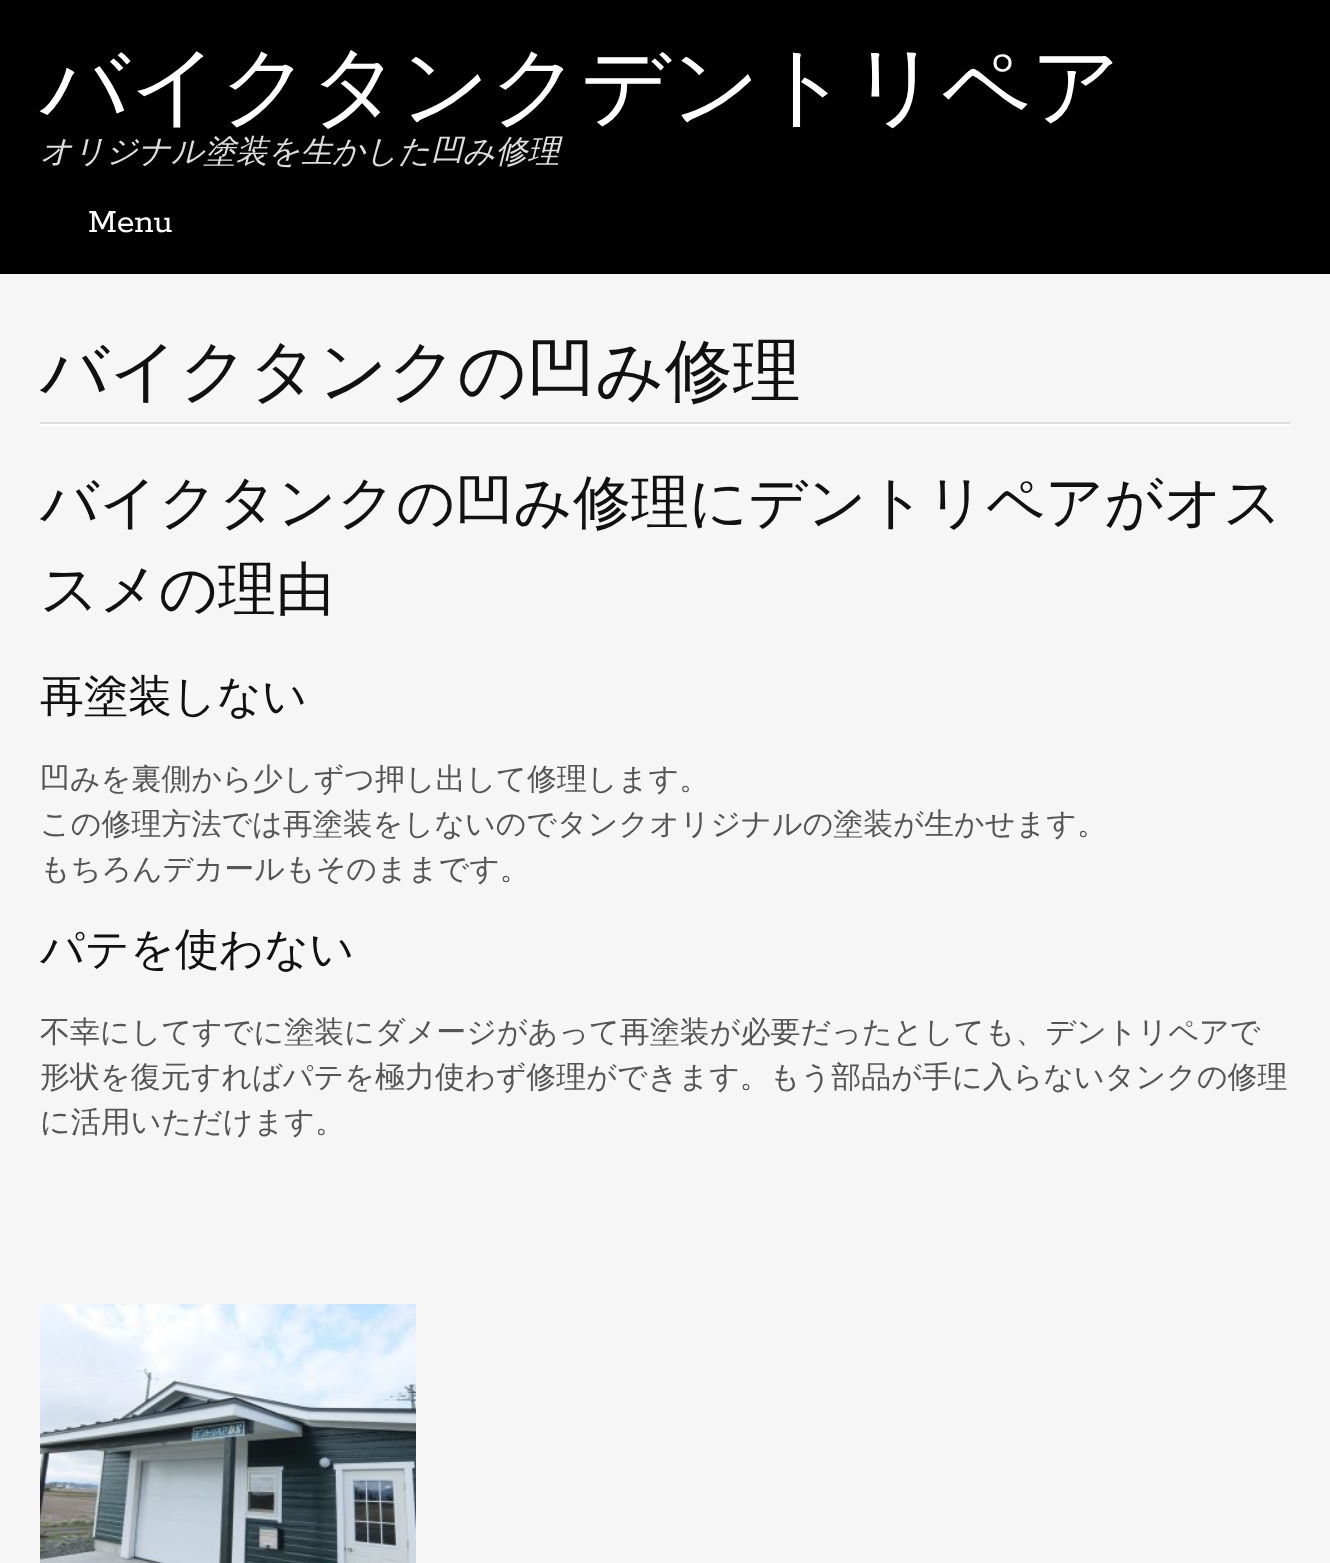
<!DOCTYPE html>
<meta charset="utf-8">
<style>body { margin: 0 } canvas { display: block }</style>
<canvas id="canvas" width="1330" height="1563"></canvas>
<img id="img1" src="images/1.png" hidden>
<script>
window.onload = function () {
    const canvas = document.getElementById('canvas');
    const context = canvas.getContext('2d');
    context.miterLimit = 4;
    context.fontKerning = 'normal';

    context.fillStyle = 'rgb(246, 246, 246)';
    context.fillRect(0, 0, 1330, 1563);
    context.fillStyle = 'rgb(0, 0, 0)';
    context.fillRect(0, 0, 1330, 274);
    context.fillStyle = 'rgb(255, 255, 255)';
    context.fillRect(40, 424, 1250, 2);
    context.fillStyle = 'rgb(221, 221, 221)';
    context.fillRect(40, 422, 1250, 2);
    context.drawImage(document.getElementById('img1'), 40, 1304, 376, 259);
    context.font = '500 88px WenQuanYi Zen Hei';
    context.fillStyle = 'rgb(255, 255, 255)';
    context.fillText('バイクタンクデントリペア', 40, 116);
    context.font = 'italic 500 32px WenQuanYi Zen Hei';
    context.fillStyle = 'rgb(221, 221, 221)';
    context.fillText('オリジナル塗装を生かした凹み修理', 40, 162);
    context.font = '36px Rokkitt';
    context.fillStyle = 'rgb(255, 255, 255)';
    context.fillText('Menu', 88, 232);
    context.font = '500 68px WenQuanYi Zen Hei';
    context.fillStyle = 'rgb(17, 17, 17)';
    context.fillText('バイクタンクの凹み修理', 40, 394);
    context.font = '500 58px WenQuanYi Zen Hei';
    context.fillText('バイクタンクの凹み修理にデントリペアがオス', 40, 522);
    context.fillText('スメの理由', 40, 609);
    context.font = '500 44px WenQuanYi Zen Hei';
    context.fillText('再塗装しない', 40, 711);
    context.font = '500 30px WenQuanYi Zen Hei';
    context.fillStyle = 'rgb(85, 85, 85)';
    context.fillText('凹みを裏側から少しずつ押し出して修理します。', 40, 789);
    context.fillText('この修理方法では再塗装をしないのでタンクオリジナルの塗装が生かせます。', 40, 834);
    context.fillText('もちろんデカールもそのままです。', 40, 879);
    context.font = '500 44px WenQuanYi Zen Hei';
    context.fillStyle = 'rgb(17, 17, 17)';
    context.fillText('パテを使わない', 40, 964);
    context.font = '500 30px WenQuanYi Zen Hei';
    context.fillStyle = 'rgb(85, 85, 85)';
    context.fillText('不幸にしてすでに塗装にダメージがあって再塗装が必要だったとしても、デントリペアで', 40, 1042);
    context.fillText('形状を復元すればパテを極力使わず修理ができます。もう部品が手に入らないタンクの修理', 40, 1087);
    context.fillText('に活用いただけます。', 40, 1132);
};
</script>
